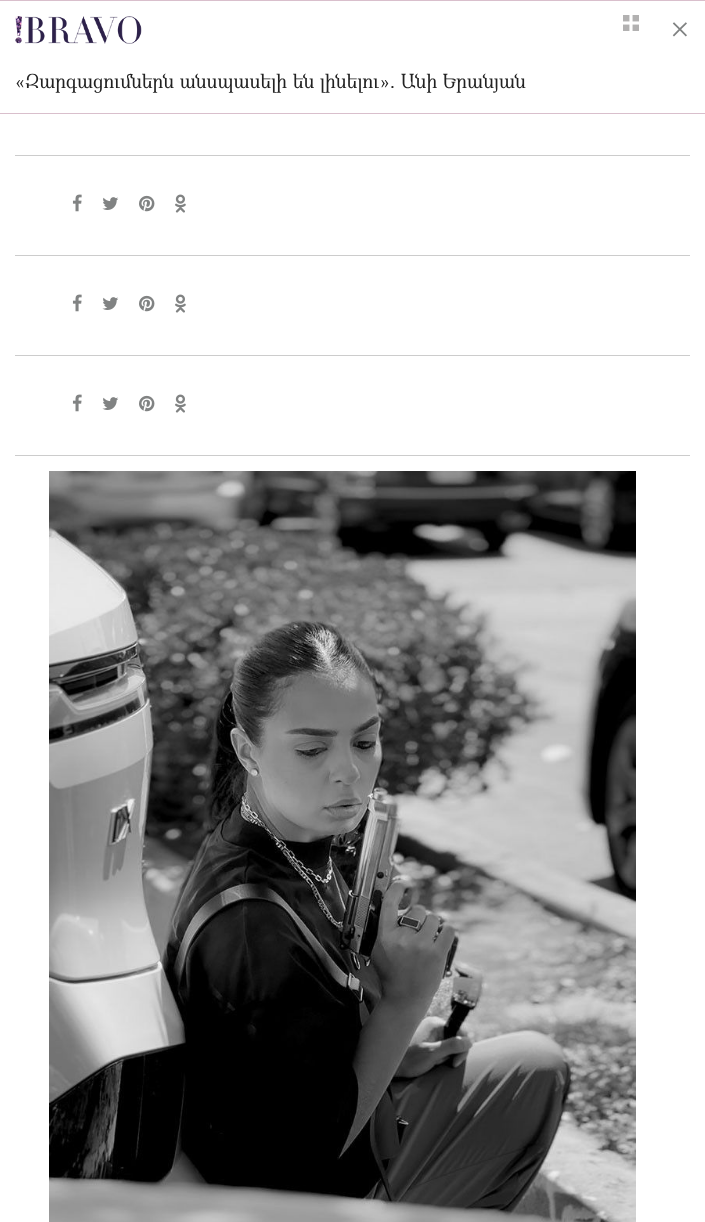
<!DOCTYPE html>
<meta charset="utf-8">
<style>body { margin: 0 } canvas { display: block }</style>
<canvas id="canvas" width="705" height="1222"></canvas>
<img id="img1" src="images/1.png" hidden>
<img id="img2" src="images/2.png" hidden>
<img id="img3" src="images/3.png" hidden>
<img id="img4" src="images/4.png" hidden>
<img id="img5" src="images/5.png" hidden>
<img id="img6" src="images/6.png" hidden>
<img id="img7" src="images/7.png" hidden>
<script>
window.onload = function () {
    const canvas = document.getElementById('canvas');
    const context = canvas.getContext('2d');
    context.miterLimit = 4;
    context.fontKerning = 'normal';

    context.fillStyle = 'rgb(255, 255, 255)';
    context.fillRect(0, 0, 705, 1222);
    context.fillStyle = 'rgb(217, 191, 204)';
    context.fillRect(0, 0, 705, 1);
    context.fillRect(0, 113, 705, 1);
    context.drawImage(document.getElementById('img1'), 15, 16, 127, 28);
    context.drawImage(document.getElementById('img2'), 623, 15, 16, 16);
    context.fillStyle = 'rgb(204, 204, 204)';
    context.fillRect(15, 155, 675, 1);
    context.drawImage(document.getElementById('img3'), 72, 194, 10, 18);
    context.drawImage(document.getElementById('img4'), 102, 197, 17, 13);
    context.drawImage(document.getElementById('img5'), 139, 195, 16, 17);
    context.drawImage(document.getElementById('img6'), 175, 194, 11, 19);
    context.fillRect(15, 255, 675, 1);
    context.drawImage(document.getElementById('img3'), 72, 294, 10, 18);
    context.drawImage(document.getElementById('img4'), 102, 297, 17, 13);
    context.drawImage(document.getElementById('img5'), 139, 295, 16, 17);
    context.drawImage(document.getElementById('img6'), 175, 294, 11, 19);
    context.fillRect(15, 355, 675, 1);
    context.drawImage(document.getElementById('img3'), 72, 394, 10, 18);
    context.drawImage(document.getElementById('img4'), 102, 397, 17, 13);
    context.drawImage(document.getElementById('img5'), 139, 395, 16, 17);
    context.drawImage(document.getElementById('img6'), 175, 394, 11, 19);
    context.fillRect(15, 455, 675, 1);
    context.drawImage(document.getElementById('img7'), 49, 471, 587, 751);
    context.font = '35px Liberation Serif';
    context.fillStyle = 'rgb(129, 131, 131)';
    context.fillText('×', 670, 41);
    context.font = '19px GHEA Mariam';
    context.fillStyle = 'rgb(34, 34, 34)';
    context.fillText('«Զարգացումներն անսպասելի են լինելու». Անի Երանյան', 15, 88);
};
</script>
